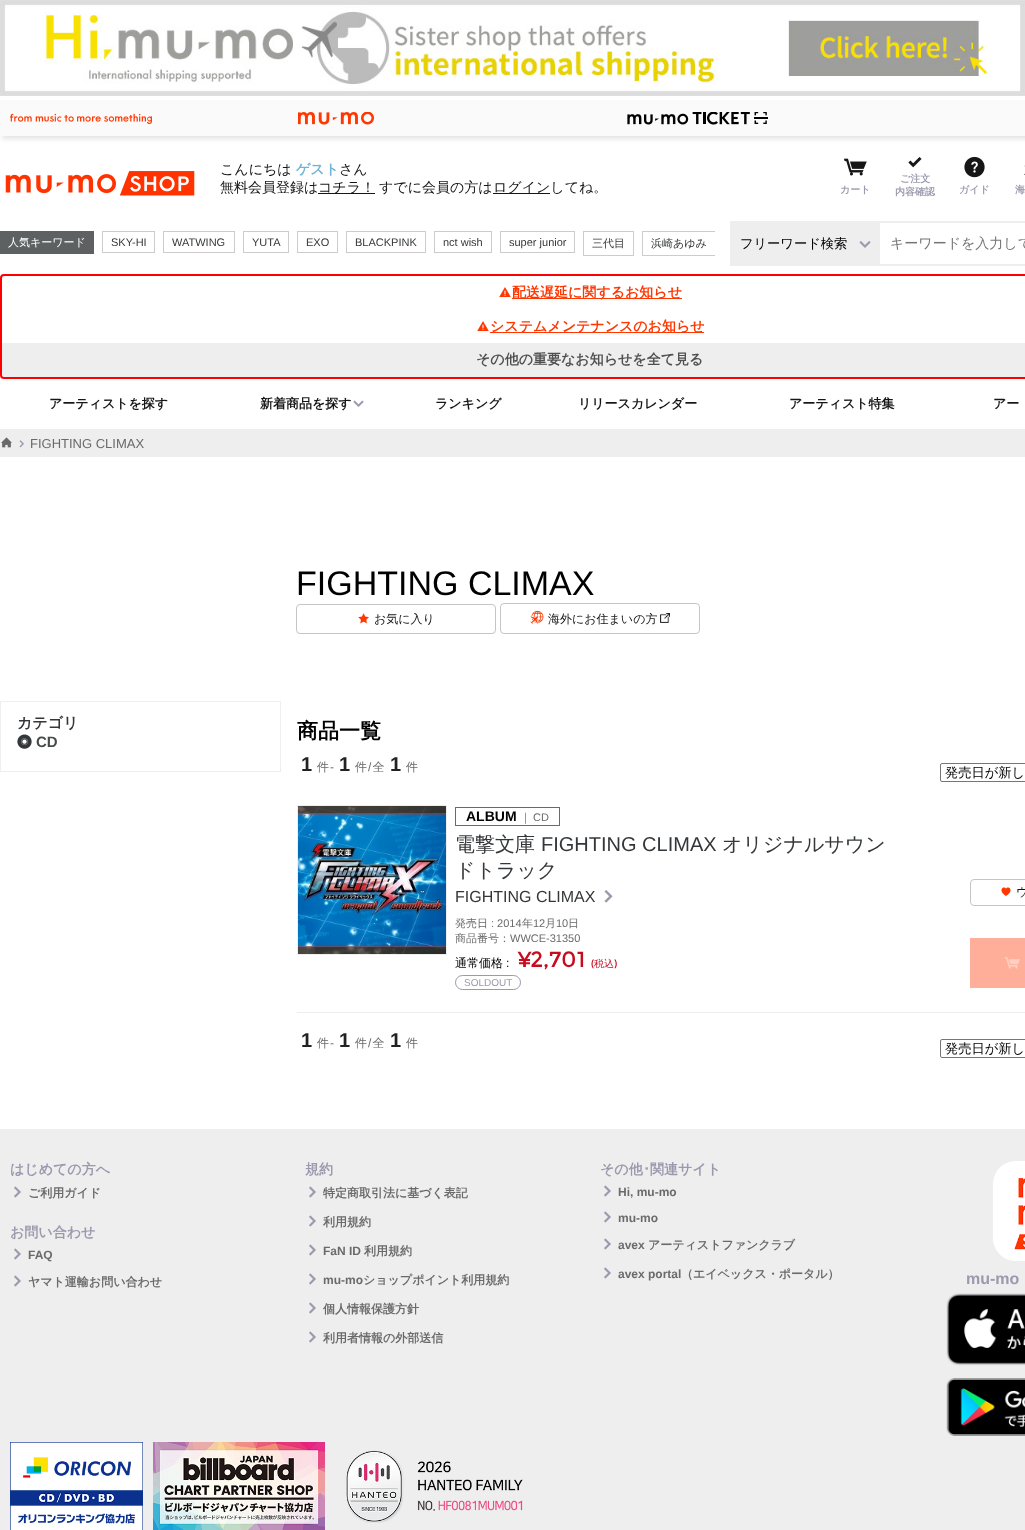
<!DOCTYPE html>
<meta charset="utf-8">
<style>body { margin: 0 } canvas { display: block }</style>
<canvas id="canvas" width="1025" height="1530"></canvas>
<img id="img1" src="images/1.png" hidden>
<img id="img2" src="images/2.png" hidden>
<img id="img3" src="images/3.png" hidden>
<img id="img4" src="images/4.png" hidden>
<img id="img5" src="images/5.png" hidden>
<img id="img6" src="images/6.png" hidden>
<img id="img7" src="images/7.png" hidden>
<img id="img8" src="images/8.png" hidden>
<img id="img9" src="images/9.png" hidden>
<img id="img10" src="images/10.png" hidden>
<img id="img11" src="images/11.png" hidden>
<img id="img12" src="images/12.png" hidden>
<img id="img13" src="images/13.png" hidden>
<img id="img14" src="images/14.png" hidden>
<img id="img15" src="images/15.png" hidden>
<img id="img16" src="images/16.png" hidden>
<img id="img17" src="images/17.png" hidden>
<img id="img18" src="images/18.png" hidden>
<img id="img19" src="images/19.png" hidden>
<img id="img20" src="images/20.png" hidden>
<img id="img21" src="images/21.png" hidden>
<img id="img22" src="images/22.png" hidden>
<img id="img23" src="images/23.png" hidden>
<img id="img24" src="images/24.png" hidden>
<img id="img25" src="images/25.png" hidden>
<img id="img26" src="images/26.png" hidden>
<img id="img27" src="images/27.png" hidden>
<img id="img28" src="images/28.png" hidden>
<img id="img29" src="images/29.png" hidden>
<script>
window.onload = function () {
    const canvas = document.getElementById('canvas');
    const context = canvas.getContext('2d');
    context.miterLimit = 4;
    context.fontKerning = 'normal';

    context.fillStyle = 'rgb(255, 255, 255)';
    context.fillRect(0, 0, 1025, 1530);
    context.drawImage(document.getElementById('img1'), 0, 0, 1025, 96);
    context.fillStyle = 'rgba(200, 200, 200, 0.5)';
    context.filter = 'blur(2.5px)';
    context.beginPath();
    context.rect(2, 107, 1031, 32);
    context.fill();
    context.filter = 'none';
    context.fillStyle = 'rgb(250, 250, 250)';
    context.fillRect(0, 100, 1025, 36);
    context.drawImage(document.getElementById('img2'), 10, 113, 142, 11);
    context.drawImage(document.getElementById('img3'), 298, 112, 76, 13);
    context.drawImage(document.getElementById('img4'), 627, 112, 141, 13);
    context.drawImage(document.getElementById('img5'), 5, 171, 190, 25);
    context.fillStyle = 'rgb(22, 22, 22)';
    context.fillRect(318, 193, 57, 1);
    context.fillRect(493, 193, 57, 1);
    context.drawImage(document.getElementById('img6'), 844, 158, 23, 18);
    context.drawImage(document.getElementById('img7'), 908, 157, 14, 11);
    context.drawImage(document.getElementById('img8'), 964, 156, 21, 22);
    context.drawImage(document.getElementById('img9'), 1024, 165, 1, 10);
    context.fillStyle = 'rgb(93, 97, 97)';
    context.fillRect(0, 231, 94, 23);
    context.strokeStyle = 'rgb(204, 204, 204)';
    context.strokeRect(102.5, 231.5, 52, 21);
    context.strokeRect(163.5, 231.5, 71, 21);
    context.strokeRect(243.5, 231.5, 45, 21);
    context.strokeRect(297.5, 231.5, 40, 21);
    context.strokeRect(346.5, 231.5, 79, 21);
    context.strokeRect(434.5, 231.5, 57, 21);
    context.strokeRect(500.5, 231.5, 74, 21);
    context.strokeRect(583.5, 231.5, 50, 24);
    context.save();
    context.beginPath();
    context.rect(0, 231, 715, 25);
    context.clip();
    context.strokeRect(642.5, 231.5, 73, 24);
    context.restore();
    context.strokeStyle = 'rgb(238, 238, 238)';
    context.lineWidth = 2;
    context.strokeRect(731, 222, 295, 43);
    context.fillStyle = 'rgb(238, 238, 238)';
    context.fillRect(730, 221, 150, 45);
    context.drawImage(document.getElementById('img10'), 859, 241, 12, 7);
    context.beginPath();
    context.roundRect(1, 275, 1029, 103, 3);
    context.strokeStyle = 'rgb(255, 0, 0)';
    context.stroke();
    context.drawImage(document.getElementById('img11'), 499, 287, 12, 10);
    context.fillStyle = 'rgb(255, 55, 0)';
    context.fillRect(512, 298, 170, 1);
    context.drawImage(document.getElementById('img11'), 477, 321, 12, 10);
    context.fillRect(490, 332, 214, 1);
    context.fillStyle = 'rgb(238, 238, 238)';
    context.beginPath();
    context.moveTo(2, 343);
    context.lineTo(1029, 343);
    context.lineTo(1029, 373);
    context.bezierCurveTo(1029, 375, 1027, 377, 1025, 377);
    context.lineTo(6, 377);
    context.bezierCurveTo(4, 377, 2, 375, 2, 373);
    context.closePath();
    context.fill();
    context.drawImage(document.getElementById('img12'), 353, 400, 11, 7);
    context.fillRect(0, 429, 1025, 28);
    context.drawImage(document.getElementById('img13'), 1, 437, 11, 11);
    context.drawImage(document.getElementById('img14'), 19, 440, 5, 8);
    context.beginPath();
    context.roundRect(296.5, 604.5, 199, 29, 3.5);
    context.strokeStyle = 'rgb(197, 197, 197)';
    context.lineWidth = 1;
    context.stroke();
    context.drawImage(document.getElementById('img15'), 358, 613, 11, 11);
    context.beginPath();
    context.roundRect(500.5, 603.5, 199, 30, 3.5);
    context.stroke();
    context.drawImage(document.getElementById('img16'), 530, 610, 14, 14);
    context.drawImage(document.getElementById('img17'), 660, 613, 10, 10);
    context.strokeStyle = 'rgb(238, 238, 238)';
    context.strokeRect(0.5, 701.5, 280, 70);
    context.drawImage(document.getElementById('img18'), 17, 734, 15, 15);
    context.beginPath();
    context.roundRect(940.5, 763.5, 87, 18, 1.5);
    context.strokeStyle = 'rgb(118, 118, 118)';
    context.stroke();
    context.fillRect(297, 1012, 728, 1);
    context.strokeStyle = 'rgb(238, 238, 238)';
    context.strokeRect(297.5, 805.5, 149, 149);
    context.drawImage(document.getElementById('img19'), 298, 806, 148, 148);
    context.strokeStyle = 'rgb(106, 106, 106)';
    context.strokeRect(455.5, 807.5, 104, 18);
    context.drawImage(document.getElementById('img20'), 604, 890, 9, 13);
    context.beginPath();
    context.roundRect(455.5, 975.5, 65, 14, 7);
    context.strokeStyle = 'rgb(154, 153, 173)';
    context.stroke();
    context.beginPath();
    context.roundRect(970.5, 879.5, 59, 26, 3.5);
    context.strokeStyle = 'rgb(197, 197, 197)';
    context.stroke();
    context.drawImage(document.getElementById('img21'), 1001, 887, 10, 9);
    context.fillStyle = 'rgb(255, 175, 153)';
    context.fillRect(970, 938, 55, 50);
    context.drawImage(document.getElementById('img22'), 1004, 957, 16, 12);
    context.beginPath();
    context.roundRect(940.5, 1039.5, 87, 18, 1.5);
    context.strokeStyle = 'rgb(118, 118, 118)';
    context.stroke();
    context.fillStyle = 'rgb(238, 238, 238)';
    context.fillRect(0, 1129, 1025, 401);
    context.drawImage(document.getElementById('img23'), 14, 1186, 7, 12);
    context.drawImage(document.getElementById('img23'), 14, 1248, 7, 12);
    context.drawImage(document.getElementById('img23'), 14, 1275, 7, 12);
    context.drawImage(document.getElementById('img23'), 309, 1186, 7, 12);
    context.drawImage(document.getElementById('img23'), 309, 1215, 7, 12);
    context.drawImage(document.getElementById('img23'), 309, 1244, 7, 12);
    context.drawImage(document.getElementById('img23'), 309, 1273, 7, 12);
    context.drawImage(document.getElementById('img23'), 309, 1302, 7, 12);
    context.drawImage(document.getElementById('img23'), 309, 1331, 7, 12);
    context.drawImage(document.getElementById('img23'), 604, 1185, 7, 12);
    context.drawImage(document.getElementById('img23'), 604, 1211, 7, 12);
    context.drawImage(document.getElementById('img23'), 604, 1238, 7, 12);
    context.drawImage(document.getElementById('img23'), 604, 1267, 7, 12);
    context.drawImage(document.getElementById('img24'), 993, 1161, 32, 100);
    context.drawImage(document.getElementById('img25'), 946, 1293, 79, 73);
    context.drawImage(document.getElementById('img26'), 946, 1378, 79, 58);
    context.drawImage(document.getElementById('img27'), 10, 1442, 133, 88);
    context.drawImage(document.getElementById('img28'), 153, 1442, 172, 88);
    context.drawImage(document.getElementById('img29'), 346, 1450, 177, 73);
    context.font = '500 14px WenQuanYi Zen Hei';
    context.fillStyle = 'rgb(22, 22, 22)';
    context.fillText('こんにちは', 220, 174);
    context.font = 'bold 14px WenQuanYi Zen Hei';
    context.fillStyle = 'rgb(112, 180, 215)';
    context.fillText('ゲスト', 296, 174);
    context.font = '500 14px WenQuanYi Zen Hei';
    context.fillStyle = 'rgb(22, 22, 22)';
    context.fillText('さん', 339, 174);
    context.fillText('無料会員登録は', 220, 192);
    context.fillText('コチラ！', 318, 192);
    context.fillText('すでに会員の方は', 379, 192);
    context.fillText('ログインしてね。', 493, 192);
    context.font = 'bold 10px WenQuanYi Zen Hei';
    context.fillStyle = 'rgb(154, 153, 173)';
    context.fillText('カート', 840, 193);
    context.fillText('ご注文', 900, 182);
    context.fillText('内容確認', 895, 195);
    context.fillText('ガイド', 959, 193);
    context.fillText('海', 1015, 193);
    context.font = '500 11px WenQuanYi Zen Hei';
    context.fillStyle = 'rgb(255, 255, 255)';
    context.fillText('人気キーワード', 8, 246);
    context.font = '11px Liberation Sans';
    context.fillStyle = 'rgb(52, 55, 57)';
    context.fillText('SKY-HI', 111, 246);
    context.fillText('WATWING', 172, 246);
    context.fillText('YUTA', 252, 246);
    context.fillText('EXO', 306, 246);
    context.fillText('BLACKPINK', 355, 246);
    context.fillText('nct wish', 443, 246);
    context.fillText('super junior', 509, 246);
    context.font = '500 11px WenQuanYi Zen Hei';
    context.fillText('三代目', 592, 247);
    context.fillText('浜崎あゆみ', 651, 247);
    context.font = '500 13.25px WenQuanYi Zen Hei';
    context.fillStyle = 'rgb(0, 0, 0)';
    context.fillText('フリーワード検索', 740, 248);
    context.font = '500 14px WenQuanYi Zen Hei';
    context.fillStyle = 'rgb(117, 117, 117)';
    context.fillText('キーワードを入力して', 890, 248);
    context.font = 'bold 14px WenQuanYi Zen Hei';
    context.fillStyle = 'rgb(255, 55, 0)';
    context.fillText('配送遅延に関するお知らせ', 512, 297);
    context.fillText('システムメンテナンスのお知らせ', 490, 331);
    context.fillStyle = 'rgb(80, 80, 80)';
    context.fillText('その他の重要なお知らせを全て見る', 476, 364);
    context.font = 'bold 13px WenQuanYi Zen Hei';
    context.fillStyle = 'rgb(22, 22, 22)';
    context.fillText('アーティストを探す', 49, 408);
    context.fillText('新着商品を探す', 260, 408);
    context.fillText('ランキング', 435, 408);
    context.fillText('リリースカレンダー', 578, 408);
    context.fillText('アーティスト特集', 789, 408);
    context.fillText('アー', 993, 408);
    context.font = '13px Liberation Sans';
    context.fillStyle = 'rgb(106, 106, 106)';
    context.fillText('FIGHTING CLIMAX', 30, 448);
    context.font = '34px Liberation Sans';
    context.fillStyle = 'rgb(0, 0, 0)';
    context.fillText('FIGHTING CLIMAX', 296, 595);
    context.font = '500 12px WenQuanYi Zen Hei';
    context.fillStyle = 'rgb(22, 22, 22)';
    context.fillText('お気に入り', 374, 623);
    context.fillText('海外にお住まいの方', 548, 623);
    context.font = 'bold 15px WenQuanYi Zen Hei';
    context.fillStyle = 'rgb(52, 55, 57)';
    context.fillText('カテゴリ', 17, 728);
    context.font = 'bold 15px Liberation Sans';
    context.fillStyle = 'rgb(71, 74, 75)';
    context.fillText('CD', 36, 747);
    context.font = 'bold 21px WenQuanYi Zen Hei';
    context.fillStyle = 'rgb(0, 0, 0)';
    context.fillText('商品一覧', 297, 738);
    context.letterSpacing = '1px';
    context.font = 'bold 20px Liberation Sans';
    context.fillStyle = 'rgb(34, 34, 34)';
    context.fillText('1', 301, 771);
    context.font = '500 12px WenQuanYi Zen Hei';
    context.fillStyle = 'rgb(106, 106, 106)';
    context.fillText('件', 317, 771);
    context.font = 'bold 20px Liberation Sans';
    context.fillStyle = 'rgb(34, 34, 34)';
    context.fillText('1', 339, 771);
    context.font = '500 12px WenQuanYi Zen Hei';
    context.fillStyle = 'rgb(106, 106, 106)';
    context.fillText('件 全', 355, 771);
    context.font = 'bold 20px Liberation Sans';
    context.fillStyle = 'rgb(34, 34, 34)';
    context.fillText('1', 390, 771);
    context.font = '500 12px WenQuanYi Zen Hei';
    context.fillStyle = 'rgb(106, 106, 106)';
    context.fillText('件', 406, 771);
    context.font = '12px Liberation Sans';
    context.fillText('-', 330, 771);
    context.fillText('/', 368, 771);
    context.letterSpacing = '0px';
    context.font = '500 13.25px WenQuanYi Zen Hei';
    context.fillStyle = 'rgb(0, 0, 0)';
    context.fillText('発売日が新し', 945, 777);
    context.font = 'bold 14px Liberation Sans';
    context.fillText('ALBUM', 466, 821);
    context.font = '500 11px WenQuanYi Zen Hei';
    context.fillStyle = 'rgb(106, 106, 106)';
    context.fillText('｜', 520, 821);
    context.font = '11px Liberation Sans';
    context.fillText('CD', 533, 821);
    context.font = '500 20px WenQuanYi Zen Hei';
    context.fillStyle = 'rgb(52, 55, 57)';
    context.fillText('電撃文庫', 455, 851);
    context.font = '20px Liberation Sans';
    context.fillText('FIGHTING CLIMAX', 541, 851);
    context.font = '500 20px WenQuanYi Zen Hei';
    context.fillText('オリジナルサウン', 722, 851);
    context.fillText('ドトラック', 455, 877);
    context.font = '16px Liberation Sans';
    context.fillText('FIGHTING CLIMAX', 455, 902);
    context.font = '500 11px WenQuanYi Zen Hei';
    context.fillStyle = 'rgb(106, 106, 106)';
    context.fillText('発売日', 455, 927);
    context.font = '11px Liberation Sans';
    context.fillText(': 2014', 491, 927);
    context.font = '500 11px WenQuanYi Zen Hei';
    context.fillText('年', 522, 927);
    context.font = '11px Liberation Sans';
    context.fillText('12', 533, 927);
    context.font = '500 11px WenQuanYi Zen Hei';
    context.fillText('月', 545, 927);
    context.font = '11px Liberation Sans';
    context.fillText('10', 556, 927);
    context.font = '500 11px WenQuanYi Zen Hei';
    context.fillText('日', 568, 927);
    context.fillText('商品番号：', 455, 942);
    context.font = '11px Liberation Sans';
    context.fillText('WWCE-31350', 510, 942);
    context.font = '500 12px WenQuanYi Zen Hei';
    context.fillStyle = 'rgb(0, 0, 0)';
    context.fillText('通常価格', 455, 967);
    context.font = '12px Liberation Sans';
    context.fillText(':', 506, 967);
    context.font = '22px Montserrat';
    context.fillStyle = 'rgb(198, 13, 31)';
    context.fillText('¥2,701', 519, 967);
    context.font = '10px Montserrat';
    context.fillText('(', 591, 967);
    context.font = '500 10px WenQuanYi Zen Hei';
    context.fillText('税込', 594, 967);
    context.font = '10px Montserrat';
    context.fillText(')', 614, 967);
    context.font = '10px Liberation Sans';
    context.fillStyle = 'rgb(154, 153, 173)';
    context.fillText('SOLDOUT', 464, 986);
    context.font = '500 12px WenQuanYi Zen Hei';
    context.fillStyle = 'rgb(22, 22, 22)';
    context.fillText('ウ', 1016, 896);
    context.letterSpacing = '1px';
    context.font = 'bold 20px Liberation Sans';
    context.fillStyle = 'rgb(34, 34, 34)';
    context.fillText('1', 301, 1047);
    context.font = '500 12px WenQuanYi Zen Hei';
    context.fillStyle = 'rgb(106, 106, 106)';
    context.fillText('件', 317, 1047);
    context.font = 'bold 20px Liberation Sans';
    context.fillStyle = 'rgb(34, 34, 34)';
    context.fillText('1', 339, 1047);
    context.font = '500 12px WenQuanYi Zen Hei';
    context.fillStyle = 'rgb(106, 106, 106)';
    context.fillText('件 全', 355, 1047);
    context.font = 'bold 20px Liberation Sans';
    context.fillStyle = 'rgb(34, 34, 34)';
    context.fillText('1', 390, 1047);
    context.font = '500 12px WenQuanYi Zen Hei';
    context.fillStyle = 'rgb(106, 106, 106)';
    context.fillText('件', 406, 1047);
    context.font = '12px Liberation Sans';
    context.fillText('-', 330, 1047);
    context.fillText('/', 368, 1047);
    context.letterSpacing = '0px';
    context.font = '500 13.25px WenQuanYi Zen Hei';
    context.fillStyle = 'rgb(0, 0, 0)';
    context.fillText('発売日が新し', 945, 1053);
    context.font = 'bold 14px WenQuanYi Zen Hei';
    context.fillStyle = 'rgb(154, 153, 173)';
    context.fillText('はじめての方へ', 10, 1174);
    context.font = 'bold 12px WenQuanYi Zen Hei';
    context.fillStyle = 'rgb(106, 106, 106)';
    context.fillText('ご利用ガイド', 28, 1197);
    context.font = 'bold 14px WenQuanYi Zen Hei';
    context.fillStyle = 'rgb(154, 153, 173)';
    context.fillText('お問い合わせ', 10, 1237);
    context.font = 'bold 12px Liberation Sans';
    context.fillStyle = 'rgb(106, 106, 106)';
    context.fillText('FAQ', 28, 1259);
    context.font = 'bold 12px WenQuanYi Zen Hei';
    context.fillText('ヤマト運輸お問い合わせ', 28, 1286);
    context.font = 'bold 14px WenQuanYi Zen Hei';
    context.fillStyle = 'rgb(154, 153, 173)';
    context.fillText('規約', 305, 1174);
    context.font = 'bold 12px WenQuanYi Zen Hei';
    context.fillStyle = 'rgb(106, 106, 106)';
    context.fillText('特定商取引法に基づく表記', 323, 1197);
    context.fillText('利用規約', 323, 1226);
    context.font = 'bold 12px Liberation Sans';
    context.fillText('FaN ID', 323, 1255);
    context.font = 'bold 12px WenQuanYi Zen Hei';
    context.fillText('利用規約', 364, 1255);
    context.font = 'bold 12px Liberation Sans';
    context.fillText('mu-mo', 323, 1284);
    context.font = 'bold 12px WenQuanYi Zen Hei';
    context.fillText('ショップポイント利用規約', 363, 1284);
    context.fillText('個人情報保護方針', 323, 1313);
    context.fillText('利用者情報の外部送信', 323, 1342);
    context.font = 'bold 14px WenQuanYi Zen Hei';
    context.fillStyle = 'rgb(154, 153, 173)';
    context.fillText('その他', 600, 1174);
    context.font = 'bold 14px IPAPGothic';
    context.fillText('･', 643, 1174);
    context.font = 'bold 14px WenQuanYi Zen Hei';
    context.fillText('関連サイト', 650, 1174);
    context.font = 'bold 12px Liberation Sans';
    context.fillStyle = 'rgb(106, 106, 106)';
    context.fillText('Hi, mu-mo', 618, 1196);
    context.fillText('mu-mo', 618, 1222);
    context.fillText('avex', 618, 1249);
    context.font = 'bold 12px WenQuanYi Zen Hei';
    context.fillText('アーティストファンクラブ', 648, 1249);
    context.font = 'bold 12px Liberation Sans';
    context.fillText('avex portal', 618, 1278);
    context.font = 'bold 12px WenQuanYi Zen Hei';
    context.fillText('（エイベックス・ポータル）', 681, 1278);
    context.font = 'bold 16px Liberation Sans';
    context.fillStyle = 'rgb(154, 153, 173)';
    context.fillText('mu-mo', 966, 1284);
};
</script>
